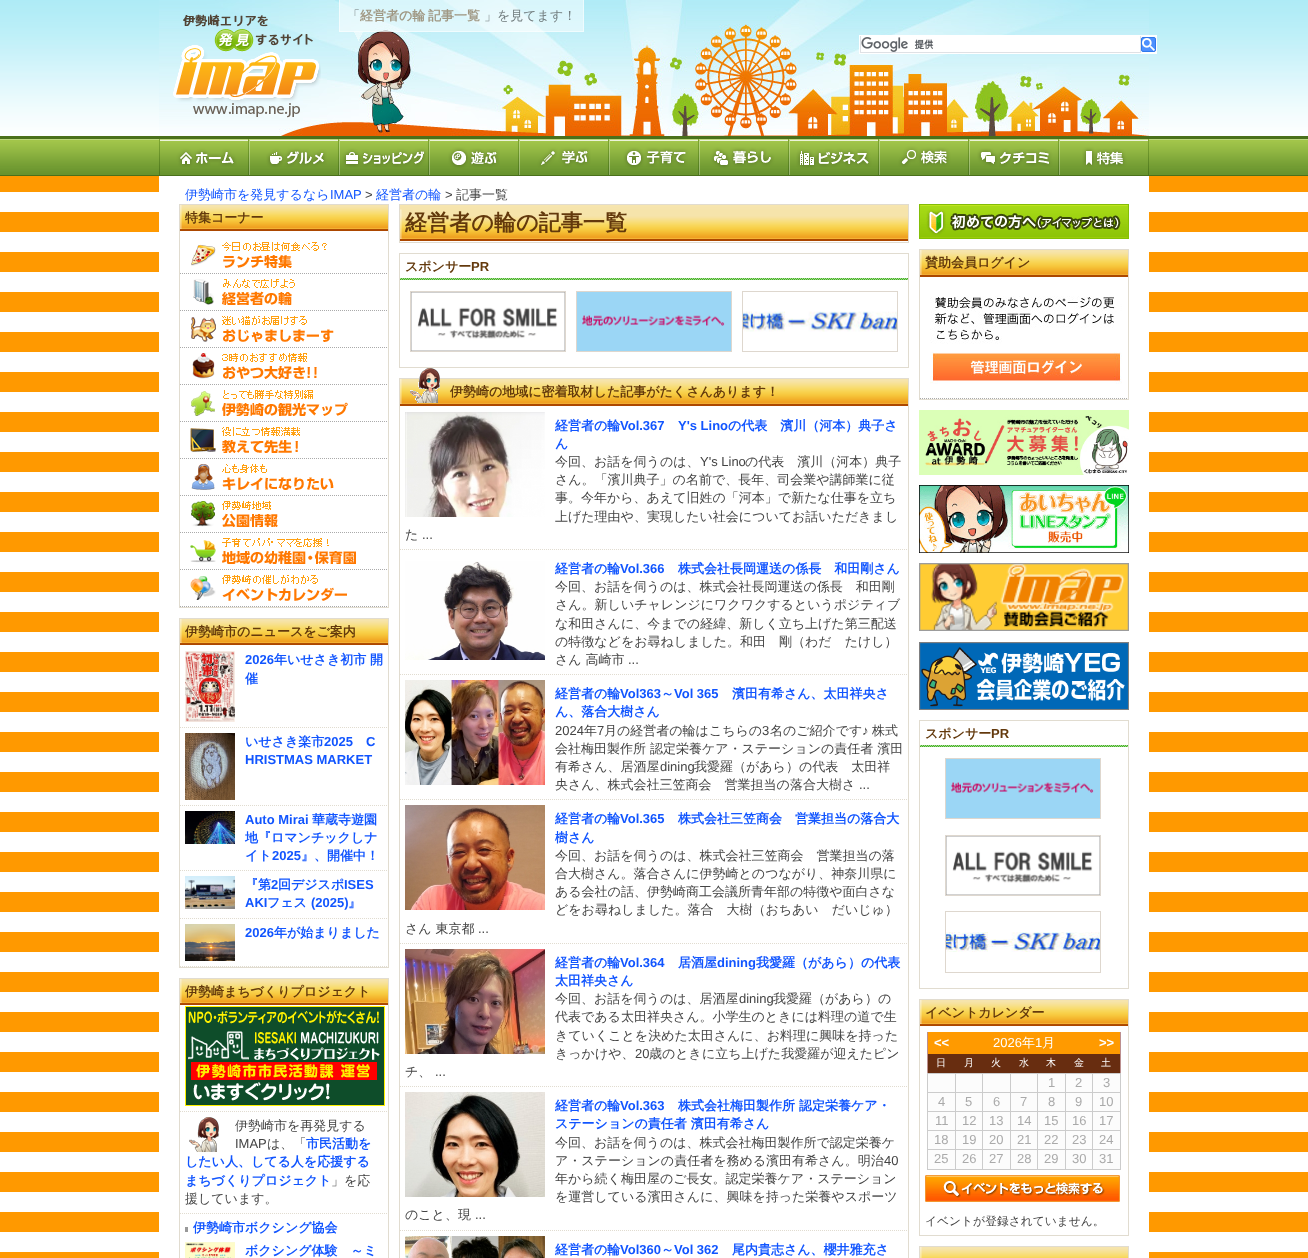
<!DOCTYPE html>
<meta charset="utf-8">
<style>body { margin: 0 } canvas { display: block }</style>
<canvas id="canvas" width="1308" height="1258"></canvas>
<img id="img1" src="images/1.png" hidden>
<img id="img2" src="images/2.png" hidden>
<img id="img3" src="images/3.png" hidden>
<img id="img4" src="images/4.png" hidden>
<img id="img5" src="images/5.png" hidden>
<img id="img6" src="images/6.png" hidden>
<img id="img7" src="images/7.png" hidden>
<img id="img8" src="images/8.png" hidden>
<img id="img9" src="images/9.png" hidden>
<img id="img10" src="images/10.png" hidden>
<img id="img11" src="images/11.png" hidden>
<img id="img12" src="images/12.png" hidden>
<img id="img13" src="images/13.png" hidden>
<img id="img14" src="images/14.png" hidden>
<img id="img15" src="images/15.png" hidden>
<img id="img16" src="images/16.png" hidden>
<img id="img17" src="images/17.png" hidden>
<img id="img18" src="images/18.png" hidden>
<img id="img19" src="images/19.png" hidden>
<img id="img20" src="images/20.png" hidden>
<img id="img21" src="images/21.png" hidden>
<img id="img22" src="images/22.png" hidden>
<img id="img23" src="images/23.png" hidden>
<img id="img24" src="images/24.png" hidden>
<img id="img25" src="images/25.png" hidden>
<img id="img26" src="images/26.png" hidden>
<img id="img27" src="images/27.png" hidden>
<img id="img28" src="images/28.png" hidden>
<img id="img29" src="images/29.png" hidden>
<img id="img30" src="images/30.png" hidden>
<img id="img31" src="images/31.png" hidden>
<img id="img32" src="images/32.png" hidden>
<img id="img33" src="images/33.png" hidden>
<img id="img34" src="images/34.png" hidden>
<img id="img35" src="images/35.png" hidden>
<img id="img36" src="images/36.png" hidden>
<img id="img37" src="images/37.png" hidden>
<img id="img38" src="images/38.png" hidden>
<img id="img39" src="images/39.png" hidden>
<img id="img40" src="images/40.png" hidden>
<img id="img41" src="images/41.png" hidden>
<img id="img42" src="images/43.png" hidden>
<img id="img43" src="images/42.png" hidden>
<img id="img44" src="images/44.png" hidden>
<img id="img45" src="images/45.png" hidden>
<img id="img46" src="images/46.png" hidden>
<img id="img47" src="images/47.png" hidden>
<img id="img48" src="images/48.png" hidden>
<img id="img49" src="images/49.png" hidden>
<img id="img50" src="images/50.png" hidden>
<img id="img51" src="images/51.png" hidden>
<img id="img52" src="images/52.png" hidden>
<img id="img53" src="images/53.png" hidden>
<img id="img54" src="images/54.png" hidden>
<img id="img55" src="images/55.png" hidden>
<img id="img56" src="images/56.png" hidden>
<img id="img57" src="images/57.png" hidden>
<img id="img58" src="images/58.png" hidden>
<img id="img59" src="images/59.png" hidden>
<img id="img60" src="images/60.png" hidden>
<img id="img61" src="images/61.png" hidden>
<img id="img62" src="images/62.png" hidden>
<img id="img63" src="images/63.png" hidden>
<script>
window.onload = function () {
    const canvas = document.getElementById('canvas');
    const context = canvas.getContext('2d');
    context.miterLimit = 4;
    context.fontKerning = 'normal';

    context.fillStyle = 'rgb(255, 255, 255)';
    context.fillRect(0, 0, 1308, 1258);
    context.drawImage(document.getElementById('img1'), 0, 0, 1308, 1258);
    context.drawImage(document.getElementById('img2'), 159, 0, 990, 136);
    context.drawImage(document.getElementById('img3'), 173, 14, 148, 104);
    context.fillStyle = 'rgba(255, 255, 255, 0.5)';
    context.fillRect(339, 0, 245, 32);
    context.fillRect(583, 0, 1, 32);
    context.fillRect(339, 0, 1, 32);
    context.fillRect(340, 31, 243, 1);
    context.drawImage(document.getElementById('img4'), 354, 32, 9, 9);
    context.fillStyle = 'rgb(255, 255, 255)';
    context.fillRect(859, 35, 298, 19);
    context.strokeStyle = 'rgb(223, 225, 229)';
    context.strokeRect(860.5, 36.5, 280, 16);
    context.fillRect(861, 36, 279, 1);
    context.drawImage(document.getElementById('img5'), 861, 37, 73, 15);
    context.fillStyle = 'rgb(77, 144, 254)';
    context.beginPath();
    context.roundRect(1141.5, 37.5, 14, 14, 1.5);
    context.fill();
    context.strokeStyle = 'rgb(48, 121, 237)';
    context.stroke();
    context.drawImage(document.getElementById('img6'), 1142, 38, 13, 13);
    context.drawImage(document.getElementById('img7'), 159, 139, 90, 37);
    context.drawImage(document.getElementById('img8'), 249, 139, 90, 37);
    context.drawImage(document.getElementById('img9'), 339, 139, 90, 37);
    context.drawImage(document.getElementById('img10'), 429, 139, 90, 37);
    context.drawImage(document.getElementById('img11'), 519, 139, 90, 37);
    context.drawImage(document.getElementById('img12'), 609, 139, 90, 37);
    context.drawImage(document.getElementById('img13'), 699, 139, 90, 37);
    context.drawImage(document.getElementById('img14'), 789, 139, 90, 37);
    context.drawImage(document.getElementById('img15'), 879, 139, 90, 37);
    context.drawImage(document.getElementById('img16'), 969, 139, 90, 37);
    context.drawImage(document.getElementById('img17'), 1059, 139, 90, 37);
    context.fillStyle = 'rgb(255, 255, 255)';
    context.fillRect(159, 176, 990, 1082);
    context.strokeStyle = 'rgb(225, 220, 208)';
    context.strokeRect(179.5, 204.5, 209, 403);
    context.drawImage(document.getElementById('img18'), 180, 205, 208, 26);
    context.beginPath();
    context.moveTo(180, 273.5);
    context.lineTo(388, 273.5);
    context.strokeStyle = 'rgb(170, 170, 170)';
    context.setLineDash([1, 1]);
    context.stroke();
    context.drawImage(document.getElementById('img19'), 191, 242, 136, 26);
    context.beginPath();
    context.moveTo(180, 310.5);
    context.lineTo(388, 310.5);
    context.stroke();
    context.drawImage(document.getElementById('img20'), 193, 279, 102, 26);
    context.beginPath();
    context.moveTo(180, 347.5);
    context.lineTo(388, 347.5);
    context.stroke();
    context.drawImage(document.getElementById('img21'), 191, 316, 143, 26);
    context.beginPath();
    context.moveTo(180, 384.5);
    context.lineTo(388, 384.5);
    context.stroke();
    context.drawImage(document.getElementById('img22'), 192, 353, 125, 26);
    context.beginPath();
    context.moveTo(180, 421.5);
    context.lineTo(388, 421.5);
    context.stroke();
    context.drawImage(document.getElementById('img23'), 191, 390, 157, 26);
    context.beginPath();
    context.moveTo(180, 458.5);
    context.lineTo(388, 458.5);
    context.stroke();
    context.drawImage(document.getElementById('img24'), 190, 427, 110, 26);
    context.beginPath();
    context.moveTo(180, 495.5);
    context.lineTo(388, 495.5);
    context.stroke();
    context.drawImage(document.getElementById('img25'), 191, 464, 143, 26);
    context.beginPath();
    context.moveTo(180, 532.5);
    context.lineTo(388, 532.5);
    context.stroke();
    context.drawImage(document.getElementById('img26'), 191, 501, 87, 26);
    context.beginPath();
    context.moveTo(180, 569.5);
    context.lineTo(388, 569.5);
    context.stroke();
    context.drawImage(document.getElementById('img27'), 190, 538, 166, 26);
    context.beginPath();
    context.moveTo(180, 606.5);
    context.lineTo(388, 606.5);
    context.stroke();
    context.drawImage(document.getElementById('img28'), 190, 575, 157, 26);
    context.strokeStyle = 'rgb(225, 220, 208)';
    context.setLineDash([]);
    context.strokeRect(179.5, 618.5, 209, 349);
    context.drawImage(document.getElementById('img18'), 180, 619, 208, 26);
    context.beginPath();
    context.moveTo(180, 727.5);
    context.lineTo(388, 727.5);
    context.setLineDash([1, 1]);
    context.stroke();
    context.drawImage(document.getElementById('img29'), 185, 651, 50, 71);
    context.beginPath();
    context.moveTo(180, 805.5);
    context.lineTo(388, 805.5);
    context.stroke();
    context.drawImage(document.getElementById('img30'), 185, 733, 50, 67);
    context.beginPath();
    context.moveTo(180, 870.5);
    context.lineTo(388, 870.5);
    context.stroke();
    context.drawImage(document.getElementById('img31'), 185, 811, 50, 33);
    context.beginPath();
    context.moveTo(180, 918.5);
    context.lineTo(388, 918.5);
    context.stroke();
    context.drawImage(document.getElementById('img32'), 185, 876, 50, 33);
    context.beginPath();
    context.moveTo(180, 966.5);
    context.lineTo(388, 966.5);
    context.stroke();
    context.drawImage(document.getElementById('img33'), 185, 924, 50, 37);
    context.setLineDash([]);
    context.strokeRect(179.5, 978.5, 209, 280);
    context.drawImage(document.getElementById('img18'), 180, 979, 208, 26);
    context.beginPath();
    context.moveTo(180, 1111.5);
    context.lineTo(388, 1111.5);
    context.setLineDash([1, 1]);
    context.stroke();
    context.drawImage(document.getElementById('img34'), 185, 1006, 200, 100);
    context.beginPath();
    context.moveTo(180, 1213.5);
    context.lineTo(388, 1213.5);
    context.stroke();
    context.drawImage(document.getElementById('img35'), 189, 1117, 30, 35);
    context.fillStyle = 'rgb(153, 153, 153)';
    context.fillRect(185, 1227, 3, 5);
    context.drawImage(document.getElementById('img36'), 185, 1242, 50, 16);
    context.setLineDash([]);
    context.strokeRect(399.5, 204.5, 509, 38);
    context.drawImage(document.getElementById('img37'), 400, 205, 508, 36);
    context.strokeRect(399.5, 253.5, 509, 114);
    context.drawImage(document.getElementById('img38'), 400, 278, 508, 2);
    context.strokeStyle = 'rgb(222, 215, 206)';
    context.strokeRect(410.5, 291.5, 155, 60);
    context.drawImage(document.getElementById('img39'), 411, 292, 154, 59);
    context.strokeRect(576.5, 291.5, 155, 60);
    context.drawImage(document.getElementById('img40'), 577, 292, 154, 59);
    context.strokeRect(742.5, 291.5, 155, 60);
    context.drawImage(document.getElementById('img41'), 743, 311, 154, 21);
    context.strokeStyle = 'rgb(225, 220, 208)';
    context.strokeRect(399.5, 378.5, 509, 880);
    context.drawImage(document.getElementById('img42'), 400, 379, 508, 27);
    context.drawImage(document.getElementById('img43'), 410, 368, 30, 35);
    context.beginPath();
    context.moveTo(400, 549.5);
    context.lineTo(908, 549.5);
    context.setLineDash([1, 1]);
    context.stroke();
    context.drawImage(document.getElementById('img44'), 405, 412, 140, 105);
    context.beginPath();
    context.moveTo(400, 674.5);
    context.lineTo(908, 674.5);
    context.stroke();
    context.drawImage(document.getElementById('img45'), 405, 561, 140, 99);
    context.beginPath();
    context.moveTo(400, 799.5);
    context.lineTo(908, 799.5);
    context.stroke();
    context.drawImage(document.getElementById('img46'), 405, 680, 140, 105);
    context.beginPath();
    context.moveTo(400, 943.5);
    context.lineTo(908, 943.5);
    context.stroke();
    context.drawImage(document.getElementById('img47'), 405, 805, 140, 105);
    context.beginPath();
    context.moveTo(400, 1086.5);
    context.lineTo(908, 1086.5);
    context.stroke();
    context.drawImage(document.getElementById('img48'), 405, 949, 140, 105);
    context.beginPath();
    context.moveTo(400, 1230.5);
    context.lineTo(908, 1230.5);
    context.stroke();
    context.drawImage(document.getElementById('img49'), 405, 1092, 140, 105);
    context.drawImage(document.getElementById('img50'), 405, 1236, 140, 22);
    context.drawImage(document.getElementById('img51'), 919, 204, 210, 35);
    context.setLineDash([]);
    context.strokeRect(919.5, 249.5, 209, 150);
    context.drawImage(document.getElementById('img52'), 920, 250, 208, 27);
    context.beginPath();
    context.moveTo(920, 398.5);
    context.lineTo(1128, 398.5);
    context.strokeStyle = 'rgb(170, 170, 170)';
    context.setLineDash([1, 1]);
    context.stroke();
    context.drawImage(document.getElementById('img53'), 930, 296, 192, 88);
    context.drawImage(document.getElementById('img54'), 919, 410, 210, 65);
    context.drawImage(document.getElementById('img55'), 919, 485, 210, 68);
    context.drawImage(document.getElementById('img56'), 919, 563, 210, 68);
    context.drawImage(document.getElementById('img57'), 919, 642, 210, 68);
    context.strokeStyle = 'rgb(225, 220, 208)';
    context.setLineDash([]);
    context.strokeRect(919.5, 720.5, 209, 268);
    context.drawImage(document.getElementById('img58'), 920, 745, 208, 2);
    context.strokeStyle = 'rgb(222, 215, 206)';
    context.strokeRect(945.5, 758.5, 155, 60);
    context.drawImage(document.getElementById('img59'), 946, 759, 154, 59);
    context.strokeRect(945.5, 835.5, 155, 60);
    context.drawImage(document.getElementById('img60'), 946, 836, 154, 59);
    context.strokeRect(945.5, 911.5, 155, 61);
    context.drawImage(document.getElementById('img61'), 946, 932, 154, 20);
    context.strokeStyle = 'rgb(225, 220, 208)';
    context.strokeRect(919.5, 999.5, 209, 236);
    context.drawImage(document.getElementById('img18'), 920, 1000, 208, 26);
    context.fillStyle = 'rgb(188, 143, 143)';
    context.fillRect(927, 1032, 194, 41);
    context.fillStyle = 'rgb(255, 154, 0)';
    context.fillRect(928, 1032, 192, 22);
    context.fillStyle = 'rgb(104, 45, 16)';
    context.fillRect(928, 1054, 192, 19);
    context.fillStyle = 'rgb(252, 252, 252)';
    context.fillRect(928, 1074, 27, 18);
    context.fillStyle = 'rgb(204, 204, 204)';
    context.fillRect(1092, 1073, 29, 1);
    context.fillRect(1092, 1092, 29, 1);
    context.fillRect(1092, 1111, 29, 1);
    context.fillRect(1092, 1130, 29, 1);
    context.fillRect(1092, 1149, 29, 1);
    context.fillRect(1120, 1149, 1, 21);
    context.fillRect(1092, 1169, 29, 1);
    context.fillRect(1092, 1149, 1, 21);
    context.fillRect(1065, 1149, 28, 1);
    context.fillRect(1092, 1130, 1, 20);
    context.fillRect(1065, 1130, 28, 1);
    context.fillRect(1092, 1111, 1, 20);
    context.fillRect(1065, 1111, 28, 1);
    context.fillRect(1092, 1092, 1, 20);
    context.fillRect(1065, 1092, 28, 1);
    context.fillRect(1092, 1073, 1, 20);
    context.fillRect(1065, 1073, 28, 1);
    context.fillRect(1065, 1169, 28, 1);
    context.fillRect(1065, 1149, 1, 21);
    context.fillRect(1037, 1149, 29, 1);
    context.fillRect(1065, 1130, 1, 20);
    context.fillRect(1037, 1130, 29, 1);
    context.fillRect(1065, 1111, 1, 20);
    context.fillRect(1037, 1111, 29, 1);
    context.fillRect(1065, 1092, 1, 20);
    context.fillRect(1037, 1092, 29, 1);
    context.fillRect(1065, 1073, 1, 20);
    context.fillRect(1037, 1073, 29, 1);
    context.fillRect(1037, 1169, 29, 1);
    context.fillRect(1037, 1149, 1, 21);
    context.fillRect(1010, 1149, 28, 1);
    context.fillRect(1037, 1130, 1, 20);
    context.fillRect(1010, 1130, 28, 1);
    context.fillRect(1037, 1111, 1, 20);
    context.fillRect(1010, 1111, 28, 1);
    context.fillRect(1037, 1092, 1, 20);
    context.fillRect(1010, 1092, 28, 1);
    context.fillRect(1037, 1073, 1, 20);
    context.fillRect(1010, 1073, 28, 1);
    context.fillRect(1010, 1169, 28, 1);
    context.fillRect(1010, 1149, 1, 21);
    context.fillRect(982, 1149, 29, 1);
    context.fillRect(1010, 1130, 1, 20);
    context.fillRect(982, 1130, 29, 1);
    context.fillRect(1010, 1111, 1, 20);
    context.fillRect(982, 1111, 29, 1);
    context.fillRect(1010, 1092, 1, 20);
    context.fillRect(982, 1092, 29, 1);
    context.fillRect(1010, 1073, 1, 20);
    context.fillRect(982, 1073, 29, 1);
    context.fillRect(982, 1169, 29, 1);
    context.fillRect(982, 1149, 1, 21);
    context.fillRect(955, 1149, 28, 1);
    context.fillRect(982, 1130, 1, 20);
    context.fillRect(955, 1130, 28, 1);
    context.fillRect(982, 1111, 1, 20);
    context.fillRect(955, 1111, 28, 1);
    context.fillRect(982, 1092, 1, 20);
    context.fillRect(955, 1092, 28, 1);
    context.fillRect(982, 1073, 1, 20);
    context.fillRect(955, 1073, 28, 1);
    context.fillRect(955, 1169, 28, 1);
    context.fillRect(955, 1149, 1, 21);
    context.fillRect(927, 1149, 29, 1);
    context.fillRect(955, 1130, 1, 20);
    context.fillRect(927, 1130, 29, 1);
    context.fillRect(955, 1111, 1, 20);
    context.fillRect(927, 1111, 29, 1);
    context.fillRect(955, 1092, 1, 20);
    context.fillRect(927, 1092, 29, 1);
    context.fillRect(955, 1073, 1, 20);
    context.fillRect(927, 1073, 29, 1);
    context.fillRect(927, 1169, 29, 1);
    context.fillRect(927, 1149, 1, 21);
    context.fillRect(927, 1130, 1, 20);
    context.fillRect(927, 1111, 1, 20);
    context.fillRect(927, 1092, 1, 20);
    context.fillRect(927, 1073, 1, 20);
    context.fillStyle = 'rgb(252, 252, 252)';
    context.fillRect(956, 1074, 26, 18);
    context.fillRect(983, 1074, 27, 18);
    context.fillRect(1011, 1074, 26, 18);
    context.fillRect(1038, 1074, 27, 18);
    context.fillRect(1066, 1074, 26, 18);
    context.fillRect(1093, 1074, 27, 18);
    context.fillStyle = 'rgb(204, 204, 204)';
    context.fillRect(1120, 1130, 1, 20);
    context.fillRect(1120, 1111, 1, 20);
    context.fillRect(1120, 1092, 1, 20);
    context.fillRect(1120, 1073, 1, 20);
    context.fillStyle = 'rgb(252, 252, 252)';
    context.fillRect(928, 1093, 27, 18);
    context.fillRect(956, 1093, 26, 18);
    context.fillRect(983, 1093, 27, 18);
    context.fillRect(1011, 1093, 26, 18);
    context.fillRect(1038, 1093, 27, 18);
    context.fillRect(1066, 1093, 26, 18);
    context.fillRect(1093, 1093, 27, 18);
    context.fillRect(928, 1112, 27, 18);
    context.fillRect(956, 1112, 26, 18);
    context.fillRect(983, 1112, 27, 18);
    context.fillRect(1011, 1112, 26, 18);
    context.fillRect(1038, 1112, 27, 18);
    context.fillRect(1066, 1112, 26, 18);
    context.fillRect(1093, 1112, 27, 18);
    context.fillRect(928, 1131, 27, 18);
    context.fillRect(956, 1131, 26, 18);
    context.fillRect(983, 1131, 27, 18);
    context.fillRect(1011, 1131, 26, 18);
    context.fillRect(1038, 1131, 27, 18);
    context.fillRect(1066, 1131, 26, 18);
    context.fillRect(1093, 1131, 27, 18);
    context.fillRect(928, 1150, 27, 19);
    context.fillRect(956, 1150, 26, 19);
    context.fillRect(983, 1150, 27, 19);
    context.fillRect(1011, 1150, 26, 19);
    context.fillRect(1038, 1150, 27, 19);
    context.fillRect(1066, 1150, 26, 19);
    context.fillRect(1093, 1150, 27, 19);
    context.drawImage(document.getElementById('img62'), 925, 1175, 195, 27);
    context.strokeRect(919.5, 1246.5, 209, 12);
    context.drawImage(document.getElementById('img63'), 920, 1247, 208, 11);
    context.font = '500 13px WenQuanYi Zen Hei';
    context.fillStyle = 'rgb(113, 124, 126)';
    context.fillText('「', 347, 20);
    context.font = 'bold 13px WenQuanYi Zen Hei';
    context.fillStyle = 'rgb(160, 152, 132)';
    context.fillText('経営者の輪', 360, 20);
    context.fillText('記事一覧', 428, 20);
    context.font = '500 13px WenQuanYi Zen Hei';
    context.fillStyle = 'rgb(113, 124, 126)';
    context.fillText('」を見てます！', 484, 20);
    context.fillStyle = 'rgb(17, 85, 255)';
    context.fillText('伊勢崎市を発見するなら', 185, 199);
    context.font = '13px Liberation Sans';
    context.fillText('IMAP', 330, 199);
    context.fillStyle = 'rgb(68, 68, 68)';
    context.fillText('>', 365, 199);
    context.font = '500 13px WenQuanYi Zen Hei';
    context.fillStyle = 'rgb(17, 85, 255)';
    context.fillText('経営者の輪', 376, 199);
    context.font = '13px Liberation Sans';
    context.fillStyle = 'rgb(68, 68, 68)';
    context.fillText('>', 445, 199);
    context.font = '500 13px WenQuanYi Zen Hei';
    context.fillText('記事一覧', 456, 199);
    context.font = 'bold 13px WenQuanYi Zen Hei';
    context.fillStyle = 'rgb(99, 57, 12)';
    context.fillText('特集コーナー', 185, 222);
    context.fillText('伊勢崎市のニュースをご案内', 185, 636);
    context.font = 'bold 13px Liberation Sans';
    context.fillStyle = 'rgb(17, 85, 255)';
    context.fillText('2026', 245, 664);
    context.font = 'bold 13px WenQuanYi Zen Hei';
    context.fillText('年いせさき初市 開', 274, 664);
    context.fillText('催', 245, 683);
    context.fillText('いせさき楽市', 245, 746);
    context.font = 'bold 13px Liberation Sans';
    context.fillText('2025', 324, 746);
    context.fillText('C', 366, 746);
    context.fillText('HRISTMAS MARKET', 245, 764);
    context.fillText('Auto Mirai', 245, 824);
    context.font = 'bold 13px WenQuanYi Zen Hei';
    context.fillText('華蔵寺遊園', 312, 824);
    context.fillText('地『ロマンチックしナ', 245, 842);
    context.fillText('イト', 245, 860);
    context.font = 'bold 13px Liberation Sans';
    context.fillText('2025', 272, 860);
    context.font = 'bold 13px WenQuanYi Zen Hei';
    context.fillText('』、開催中！', 301, 860);
    context.fillText('『第', 245, 889);
    context.font = 'bold 13px Liberation Sans';
    context.fillText('2', 271, 889);
    context.font = 'bold 13px WenQuanYi Zen Hei';
    context.fillText('回デジスポ', 278, 889);
    context.font = 'bold 13px Liberation Sans';
    context.fillText('ISES', 344, 889);
    context.fillText('AKI', 245, 907);
    context.font = 'bold 13px WenQuanYi Zen Hei';
    context.fillText('フェス', 267, 907);
    context.font = 'bold 13px Liberation Sans';
    context.fillText('(2025)', 311, 907);
    context.font = 'bold 13px WenQuanYi Zen Hei';
    context.fillText('』', 348, 907);
    context.font = 'bold 13px Liberation Sans';
    context.fillText('2026', 245, 937);
    context.font = 'bold 13px WenQuanYi Zen Hei';
    context.fillText('年が始まりました', 274, 937);
    context.fillStyle = 'rgb(99, 57, 12)';
    context.fillText('伊勢崎まちづくりプロジェクト', 185, 996);
    context.font = '500 13px WenQuanYi Zen Hei';
    context.fillStyle = 'rgb(68, 68, 68)';
    context.fillText('伊勢崎市を再発見する', 235, 1130);
    context.font = '13px Liberation Sans';
    context.fillText('IMAP', 235, 1148);
    context.font = '500 13px WenQuanYi Zen Hei';
    context.fillText('は、「', 267, 1148);
    context.font = 'bold 13px WenQuanYi Zen Hei';
    context.fillStyle = 'rgb(17, 85, 255)';
    context.fillText('市民活動を', 306, 1148);
    context.fillText('したい人、してる人を応援する', 185, 1166);
    context.fillText('まちづくりプロジェクト', 185, 1185);
    context.font = '500 13px WenQuanYi Zen Hei';
    context.fillStyle = 'rgb(68, 68, 68)';
    context.fillText('」を応', 331, 1185);
    context.fillText('援しています。', 185, 1203);
    context.font = 'bold 13px WenQuanYi Zen Hei';
    context.fillStyle = 'rgb(17, 85, 255)';
    context.fillText('伊勢崎市ボクシング協会', 193, 1232);
    context.fillText('ボクシング体験　～ミ', 245, 1255);
    context.font = 'bold 22.1px WenQuanYi Zen Hei';
    context.fillStyle = 'rgb(99, 57, 12)';
    context.fillText('経営者の輪の記事一覧', 405, 230);
    context.font = 'bold 13px WenQuanYi Zen Hei';
    context.fillText('スポンサー', 405, 271);
    context.font = 'bold 13px Liberation Sans';
    context.fillText('PR', 471, 271);
    context.font = 'bold 13px WenQuanYi Zen Hei';
    context.fillText('伊勢崎の地域に密着取材した記事がたくさんあります！', 450, 396);
    context.fillStyle = 'rgb(17, 85, 255)';
    context.fillText('経営者の輪', 555, 430);
    context.font = 'bold 13px Liberation Sans';
    context.fillText('Vol.367', 620, 430);
    context.fillText('Y\'s Lino', 678, 430);
    context.font = 'bold 13px WenQuanYi Zen Hei';
    context.fillText('の代表　濱川（河本）典子さ', 728, 430);
    context.fillText('ん', 555, 448);
    context.font = '500 13px WenQuanYi Zen Hei';
    context.fillStyle = 'rgb(68, 68, 68)';
    context.fillText('今回、お話を伺うのは、', 555, 466);
    context.font = '13px Liberation Sans';
    context.fillText('Y\'s Lino', 700, 466);
    context.font = '500 13px WenQuanYi Zen Hei';
    context.fillText('の代表　濱川（河本）典子', 745, 466);
    context.fillText('さん。「濱川典子」の名前で、長年、司会業や講師業に従', 555, 484);
    context.fillText('事。今年から、あえて旧姓の「河本」で新たな仕事を立ち', 555, 502);
    context.fillText('上げた理由や、実現したい社会についてお話いただきまし', 555, 521);
    context.fillText('た', 405, 539);
    context.font = '13px Liberation Sans';
    context.fillText('...', 422, 539);
    context.font = 'bold 13px WenQuanYi Zen Hei';
    context.fillStyle = 'rgb(17, 85, 255)';
    context.fillText('経営者の輪', 555, 573);
    context.font = 'bold 13px Liberation Sans';
    context.fillText('Vol.366', 620, 573);
    context.font = 'bold 13px WenQuanYi Zen Hei';
    context.fillText('株式会社長岡運送の係長　和田剛さん', 678, 573);
    context.font = '500 13px WenQuanYi Zen Hei';
    context.fillStyle = 'rgb(68, 68, 68)';
    context.fillText('今回、お話を伺うのは、株式会社長岡運送の係長　和田剛', 555, 591);
    context.fillText('さん。新しいチャレンジにワクワクするというポジティブ', 555, 609);
    context.fillText('な和田さんに、今までの経緯、新しく立ち上げた第三配送', 555, 628);
    context.fillText('の特徴などをお尋ねしました。和田　剛（わだ　たけし）', 555, 646);
    context.fillText('さん 高崎市', 555, 664);
    context.font = '13px Liberation Sans';
    context.fillText('...', 628, 664);
    context.font = 'bold 13px WenQuanYi Zen Hei';
    context.fillStyle = 'rgb(17, 85, 255)';
    context.fillText('経営者の輪', 555, 698);
    context.font = 'bold 13px Liberation Sans';
    context.fillText('Vol363', 620, 698);
    context.font = 'bold 13px WenQuanYi Zen Hei';
    context.fillText('～', 661, 698);
    context.font = 'bold 13px Liberation Sans';
    context.fillText('Vol 365', 674, 698);
    context.font = 'bold 13px WenQuanYi Zen Hei';
    context.fillText('濱田有希さん、太田祥央さ', 732, 698);
    context.fillText('ん、落合大樹さん', 555, 716);
    context.font = '13px Liberation Sans';
    context.fillStyle = 'rgb(68, 68, 68)';
    context.fillText('2024', 555, 735);
    context.font = '500 13px WenQuanYi Zen Hei';
    context.fillText('年', 584, 735);
    context.font = '13px Liberation Sans';
    context.fillText('7', 597, 735);
    context.font = '500 13px WenQuanYi Zen Hei';
    context.fillText('月の経営者の輪はこちらの', 604, 735);
    context.font = '13px Liberation Sans';
    context.fillText('3', 762, 735);
    context.font = '500 13px WenQuanYi Zen Hei';
    context.fillText('名のご紹介です', 770, 735);
    context.font = '13px Liberation Sans';
    context.fillText('♪', 862, 735);
    context.font = '500 13px WenQuanYi Zen Hei';
    context.fillText('株式', 872, 735);
    context.fillText('会社梅田製作所 認定栄養ケア・ステーションの責任者 濱田', 555, 753);
    context.fillText('有希さん、居酒屋', 555, 771);
    context.font = '13px Liberation Sans';
    context.fillText('dining', 660, 771);
    context.font = '500 13px WenQuanYi Zen Hei';
    context.fillText('我愛羅（があら）の代表　太田祥', 694, 771);
    context.fillText('央さん、株式会社三笠商会　営業担当の落合大樹さ', 555, 789);
    context.font = '13px Liberation Sans';
    context.fillText('...', 859, 789);
    context.font = 'bold 13px WenQuanYi Zen Hei';
    context.fillStyle = 'rgb(17, 85, 255)';
    context.fillText('経営者の輪', 555, 823);
    context.font = 'bold 13px Liberation Sans';
    context.fillText('Vol.365', 620, 823);
    context.font = 'bold 13px WenQuanYi Zen Hei';
    context.fillText('株式会社三笠商会　営業担当の落合大', 678, 823);
    context.fillText('樹さん', 555, 842);
    context.font = '500 13px WenQuanYi Zen Hei';
    context.fillStyle = 'rgb(68, 68, 68)';
    context.fillText('今回、お話を伺うのは、株式会社三笠商会　営業担当の落', 555, 860);
    context.fillText('合大樹さん。落合さんに伊勢崎とのつながり、神奈川県に', 555, 878);
    context.fillText('ある会社の話、伊勢崎商工会議所青年部の特徴や面白さな', 555, 896);
    context.fillText('どをお尋ねしました。落合　大樹（おちあい　だいじゅ）', 555, 914);
    context.fillText('さん 東京都', 405, 933);
    context.font = '13px Liberation Sans';
    context.fillText('...', 478, 933);
    context.font = 'bold 13px WenQuanYi Zen Hei';
    context.fillStyle = 'rgb(17, 85, 255)';
    context.fillText('経営者の輪', 555, 967);
    context.font = 'bold 13px Liberation Sans';
    context.fillText('Vol.364', 620, 967);
    context.font = 'bold 13px WenQuanYi Zen Hei';
    context.fillText('居酒屋', 678, 967);
    context.font = 'bold 13px Liberation Sans';
    context.fillText('dining', 717, 967);
    context.font = 'bold 13px WenQuanYi Zen Hei';
    context.fillText('我愛羅（があら）の代表', 756, 967);
    context.fillText('太田祥央さん', 555, 985);
    context.font = '500 13px WenQuanYi Zen Hei';
    context.fillStyle = 'rgb(68, 68, 68)';
    context.fillText('今回、お話を伺うのは、居酒屋', 555, 1003);
    context.font = '13px Liberation Sans';
    context.fillText('dining', 739, 1003);
    context.font = '500 13px WenQuanYi Zen Hei';
    context.fillText('我愛羅（があら）の', 773, 1003);
    context.fillText('代表である太田祥央さん。小学生のときには料理の道で生', 555, 1021);
    context.fillText('きていくことを決めた太田さんに、お料理に興味を持った', 555, 1040);
    context.fillText('きっかけや、', 555, 1058);
    context.font = '13px Liberation Sans';
    context.fillText('20', 635, 1058);
    context.font = '500 13px WenQuanYi Zen Hei';
    context.fillText('歳のときに立ち上げた我愛羅が迎えたピン', 649, 1058);
    context.fillText('チ、', 405, 1076);
    context.font = '13px Liberation Sans';
    context.fillText('...', 435, 1076);
    context.font = 'bold 13px WenQuanYi Zen Hei';
    context.fillStyle = 'rgb(17, 85, 255)';
    context.fillText('経営者の輪', 555, 1110);
    context.font = 'bold 13px Liberation Sans';
    context.fillText('Vol.363', 620, 1110);
    context.font = 'bold 13px WenQuanYi Zen Hei';
    context.fillText('株式会社梅田製作所 認定栄養ケア・', 678, 1110);
    context.fillText('ステーションの責任者 濱田有希さん', 555, 1128);
    context.font = '500 13px WenQuanYi Zen Hei';
    context.fillStyle = 'rgb(68, 68, 68)';
    context.fillText('今回、お話を伺うのは、株式会社梅田製作所で認定栄養ケ', 555, 1147);
    context.fillText('ア・ステーションの責任者を務める濱田有希さん。明治', 555, 1165);
    context.font = '13px Liberation Sans';
    context.fillText('40', 884, 1165);
    context.font = '500 13px WenQuanYi Zen Hei';
    context.fillText('年から続く梅田屋のご長女。認定栄養ケア・ステーション', 555, 1183);
    context.fillText('を運営している濱田さんに、興味を持った栄養やスポーツ', 555, 1201);
    context.fillText('のこと、現', 405, 1219);
    context.font = '13px Liberation Sans';
    context.fillText('...', 475, 1219);
    context.font = 'bold 13px WenQuanYi Zen Hei';
    context.fillStyle = 'rgb(17, 85, 255)';
    context.fillText('経営者の輪', 555, 1254);
    context.font = 'bold 13px Liberation Sans';
    context.fillText('Vol360', 620, 1254);
    context.font = 'bold 13px WenQuanYi Zen Hei';
    context.fillText('～', 661, 1254);
    context.font = 'bold 13px Liberation Sans';
    context.fillText('Vol 362', 674, 1254);
    context.font = 'bold 13px WenQuanYi Zen Hei';
    context.fillText('尾内貴志さん、櫻井雅充さ', 732, 1254);
    context.fillStyle = 'rgb(99, 57, 12)';
    context.fillText('賛助会員ログイン', 925, 267);
    context.fillText('スポンサー', 925, 738);
    context.font = 'bold 13px Liberation Sans';
    context.fillText('PR', 991, 738);
    context.font = 'bold 13px WenQuanYi Zen Hei';
    context.fillText('イベントカレンダー', 925, 1017);
    context.font = 'bold 13px Liberation Sans';
    context.fillStyle = 'rgb(255, 255, 255)';
    context.fillText('<<', 934, 1047);
    context.font = '13px Liberation Sans';
    context.fillText('2026', 993, 1047);
    context.font = '500 13px WenQuanYi Zen Hei';
    context.fillText('年', 1022, 1047);
    context.font = '13px Liberation Sans';
    context.fillText('1', 1035, 1047);
    context.font = '500 13px WenQuanYi Zen Hei';
    context.fillText('月', 1042, 1047);
    context.font = 'bold 13px Liberation Sans';
    context.fillText('>>', 1099, 1047);
    context.font = '500 10px WenQuanYi Zen Hei';
    context.fillText('日', 936, 1066);
    context.fillText('月', 964, 1066);
    context.fillText('火', 991, 1066);
    context.fillText('水', 1019, 1066);
    context.fillText('木', 1046, 1066);
    context.fillText('金', 1074, 1066);
    context.fillText('土', 1101, 1066);
    context.font = '13px Liberation Sans';
    context.fillStyle = 'rgb(170, 170, 170)';
    context.fillText('1', 1048, 1087);
    context.fillText('2', 1075, 1087);
    context.fillText('3', 1103, 1087);
    context.fillText('4', 938, 1106);
    context.fillText('5', 965, 1106);
    context.fillText('6', 993, 1106);
    context.fillText('7', 1020, 1106);
    context.fillText('8', 1048, 1106);
    context.fillText('9', 1075, 1106);
    context.fillText('10', 1099, 1106);
    context.fillText('11', 935, 1125);
    context.fillText('12', 962, 1125);
    context.fillText('13', 989, 1125);
    context.fillText('14', 1017, 1125);
    context.fillText('15', 1044, 1125);
    context.fillText('16', 1072, 1125);
    context.fillText('17', 1099, 1125);
    context.fillText('18', 934, 1144);
    context.fillText('19', 962, 1144);
    context.fillText('20', 989, 1144);
    context.fillText('21', 1017, 1144);
    context.fillText('22', 1044, 1144);
    context.fillText('23', 1072, 1144);
    context.fillText('24', 1099, 1144);
    context.fillText('25', 934, 1163);
    context.fillText('26', 962, 1163);
    context.fillText('27', 989, 1163);
    context.fillText('28', 1017, 1163);
    context.fillText('29', 1044, 1163);
    context.fillText('30', 1072, 1163);
    context.fillText('31', 1099, 1163);
    context.font = '500 11.75px WenQuanYi Zen Hei';
    context.fillStyle = 'rgb(68, 68, 68)';
    context.fillText('イベントが登録されていません。', 925, 1225);
};
</script>
